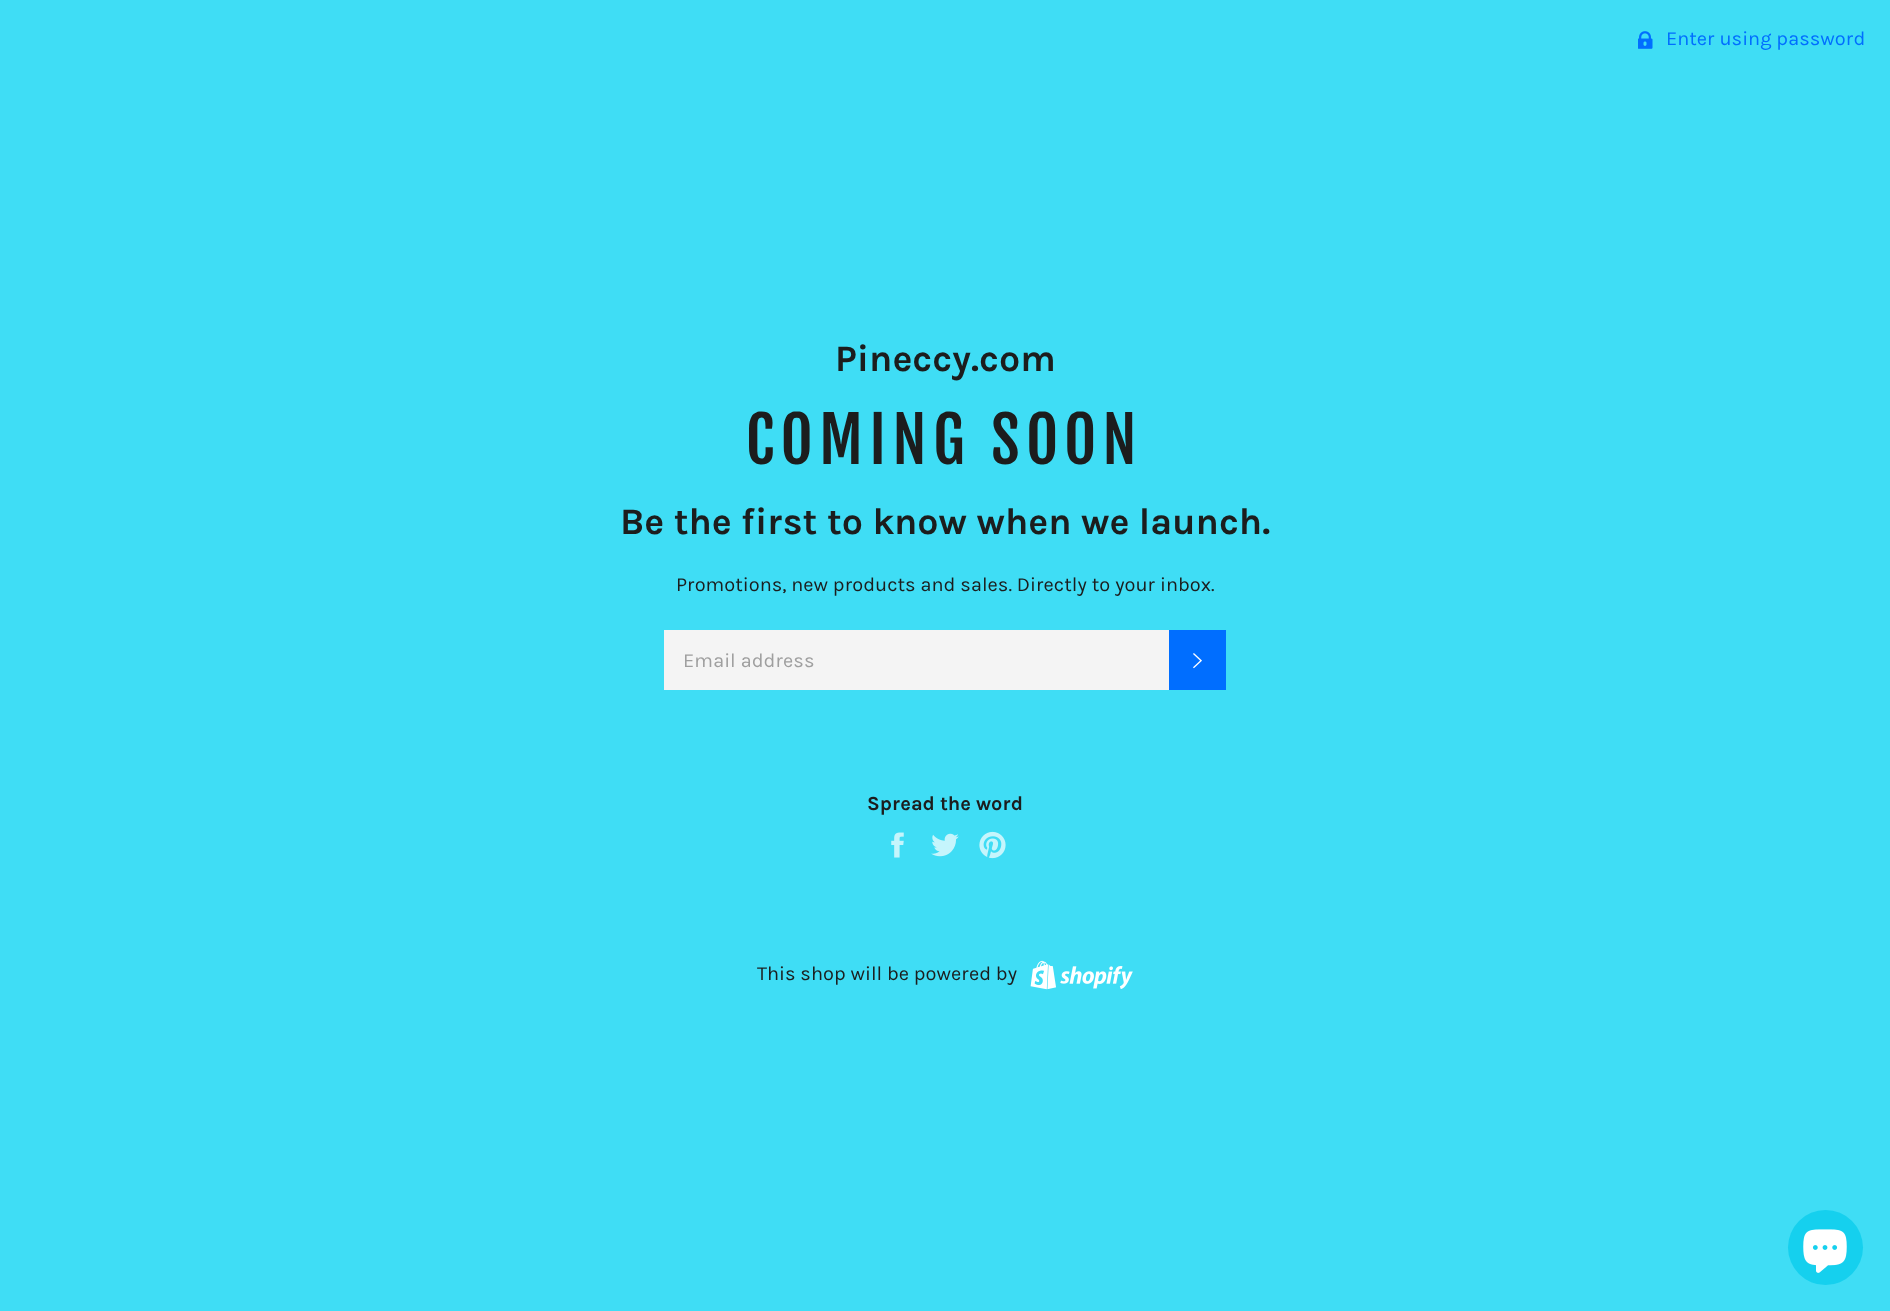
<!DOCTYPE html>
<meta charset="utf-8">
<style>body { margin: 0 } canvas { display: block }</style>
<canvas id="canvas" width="1890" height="1311"></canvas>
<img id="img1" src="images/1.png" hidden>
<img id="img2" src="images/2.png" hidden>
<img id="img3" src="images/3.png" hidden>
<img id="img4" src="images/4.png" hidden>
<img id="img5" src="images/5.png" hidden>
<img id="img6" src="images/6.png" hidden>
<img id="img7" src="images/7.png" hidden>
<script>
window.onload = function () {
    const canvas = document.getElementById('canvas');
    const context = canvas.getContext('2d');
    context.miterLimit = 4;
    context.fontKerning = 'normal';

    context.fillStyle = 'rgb(63, 221, 245)';
    context.fillRect(0, 0, 1890, 1311);
    context.drawImage(document.getElementById('img1'), 1638, 31, 15, 18);
    context.fillStyle = 'rgb(244, 244, 244)';
    context.fillRect(664, 630, 505, 60);
    context.fillStyle = 'rgb(0, 110, 255)';
    context.fillRect(1169, 630, 57, 60);
    context.drawImage(document.getElementById('img2'), 1193, 653, 9, 16);
    context.drawImage(document.getElementById('img3'), 891, 832, 13, 26);
    context.drawImage(document.getElementById('img4'), 931, 833, 28, 24);
    context.drawImage(document.getElementById('img5'), 979, 831, 27, 28);
    context.drawImage(document.getElementById('img6'), 1030, 960, 103, 30);
    context.fillStyle = 'rgb(21, 208, 238)';
    context.beginPath();
    context.arc(1825.5, 1247.5, 37.5, 0, 2 * Math.PI);
    context.fill();
    context.drawImage(document.getElementById('img7'), 1803, 1229, 44, 44);
    context.font = '20px Karla';
    context.fillStyle = 'rgb(0, 110, 255)';
    context.fillText('Enter using password', 1666, 45);
    context.font = 'bold 37.5px Karla';
    context.fillStyle = 'rgb(28, 29, 29)';
    context.fillText('Pineccy.com', 835, 371);
    context.letterSpacing = '6.25px';
    context.font = '62.5px Fjalla One';
    context.fillText('COMING SOON', 746, 464);
    context.letterSpacing = '0px';
    context.font = 'bold 37.5px Karla';
    context.fillText('Be the first to know when we launch.', 620, 534);
    context.font = '20px Karla';
    context.fillText('Promotions, new products and sales. Directly to your inbox.', 676, 591);
    context.fillStyle = 'rgb(159, 159, 159)';
    context.fillText('Email address', 683, 667);
    context.font = 'bold 20px Karla';
    context.fillStyle = 'rgb(28, 29, 29)';
    context.fillText('Spread the word', 867, 810);
    context.font = '20px Karla';
    context.fillText('This shop will be powered by', 757, 980);
};
</script>
